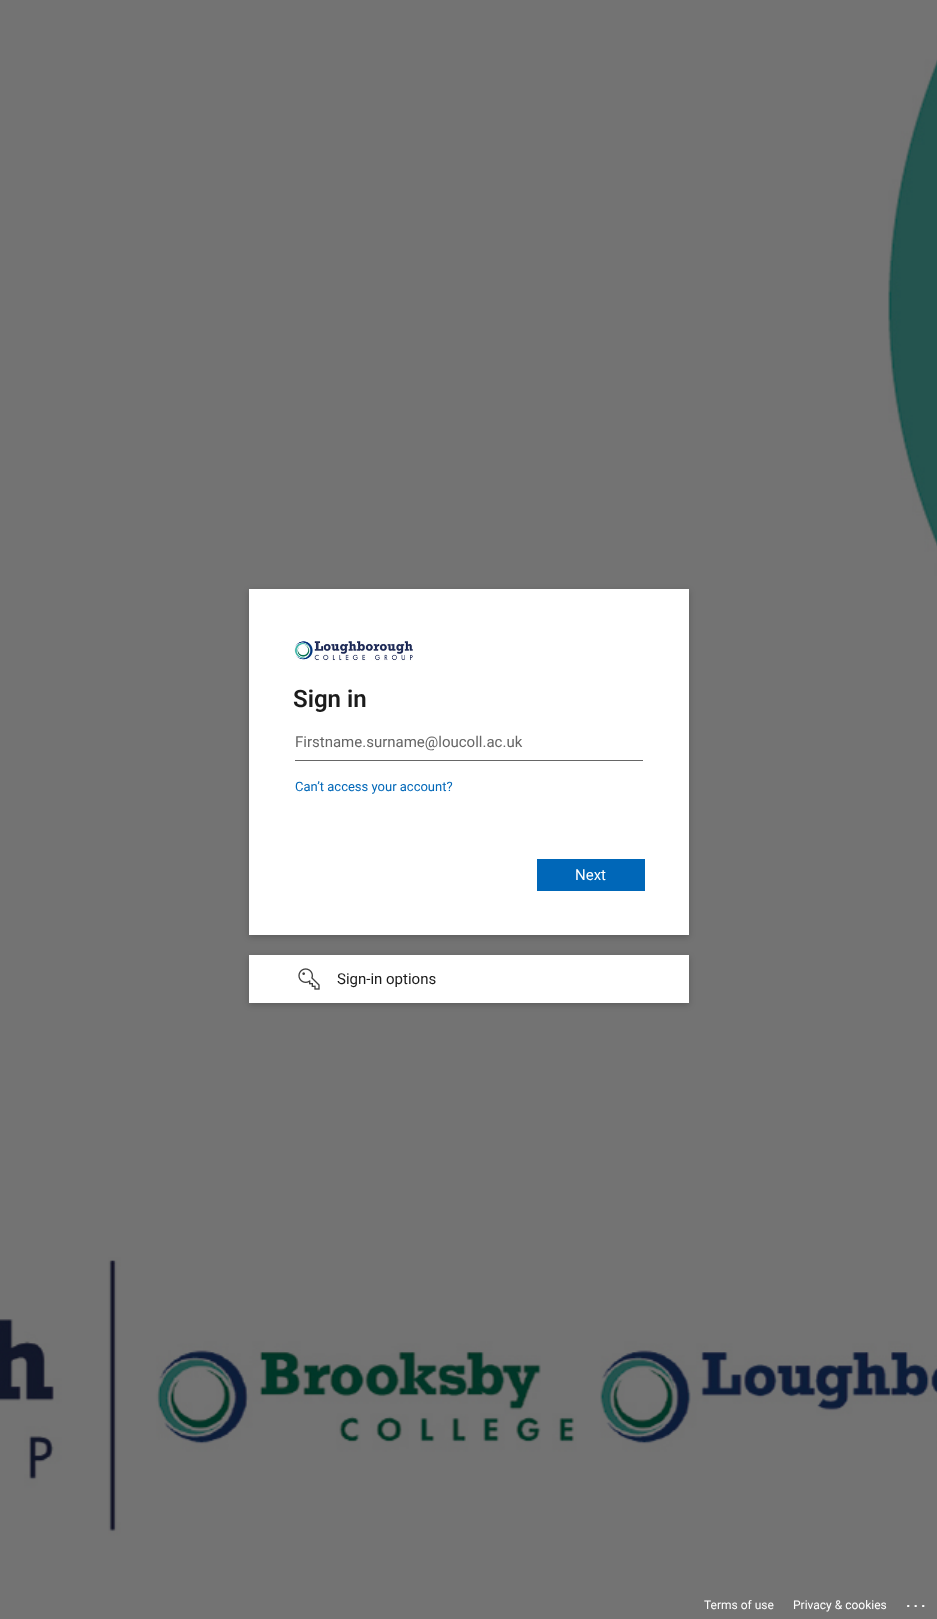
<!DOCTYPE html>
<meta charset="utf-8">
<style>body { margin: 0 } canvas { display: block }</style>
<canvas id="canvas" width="937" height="1619"></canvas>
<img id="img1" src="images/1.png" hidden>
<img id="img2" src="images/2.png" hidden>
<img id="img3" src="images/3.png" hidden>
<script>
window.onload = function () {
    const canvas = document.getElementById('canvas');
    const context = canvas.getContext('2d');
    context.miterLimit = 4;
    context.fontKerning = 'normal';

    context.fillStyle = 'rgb(255, 255, 255)';
    context.fillRect(0, 0, 937, 1619);
    context.drawImage(document.getElementById('img1'), 0, 0, 937, 1619);
    context.fillStyle = 'rgba(0, 0, 0, 0.2)';
    context.filter = 'blur(3px)';
    context.beginPath();
    context.rect(249, 591, 440, 346);
    context.fill();
    context.filter = 'none';
    context.fillStyle = 'rgb(255, 255, 255)';
    context.fillRect(249, 589, 440, 346);
    context.drawImage(document.getElementById('img2'), 294, 641, 119, 20);
    context.fillStyle = 'rgb(102, 102, 102)';
    context.fillRect(295, 760, 348, 1);
    context.fillStyle = 'rgb(0, 103, 184)';
    context.fillRect(537, 859, 108, 32);
    context.fillStyle = 'rgba(0, 0, 0, 0.2)';
    context.filter = 'blur(3px)';
    context.beginPath();
    context.rect(249, 957, 440, 48);
    context.fill();
    context.filter = 'none';
    context.fillStyle = 'rgb(255, 255, 255)';
    context.fillRect(249, 955, 440, 48);
    context.drawImage(document.getElementById('img3'), 298, 968, 22, 22);
    context.font = '600 24px Roboto';
    context.fillStyle = 'rgb(27, 27, 27)';
    context.fillText('Sign in', 293, 707);
    context.font = '15px Roboto';
    context.fillStyle = 'rgb(102, 102, 102)';
    context.fillText('Firstname.surname@loucoll.ac.uk', 295, 747);
    context.font = '13px Roboto';
    context.fillStyle = 'rgb(0, 103, 184)';
    context.fillText('Can’t access your account?', 295, 791);
    context.font = '15px Roboto';
    context.fillStyle = 'rgb(255, 255, 255)';
    context.fillText('Next', 575, 880);
    context.fillStyle = 'rgb(27, 27, 27)';
    context.fillText('Sign-in options', 337, 984);
    context.font = '12px Roboto';
    context.fillStyle = 'rgb(255, 255, 255)';
    context.fillText('Terms of use', 704, 1609);
    context.fillText('Privacy & cookies', 793, 1609);
    context.letterSpacing = '3px';
    context.font = '600 16px Roboto';
    context.fillText('...', 906, 1607);
};
</script>
